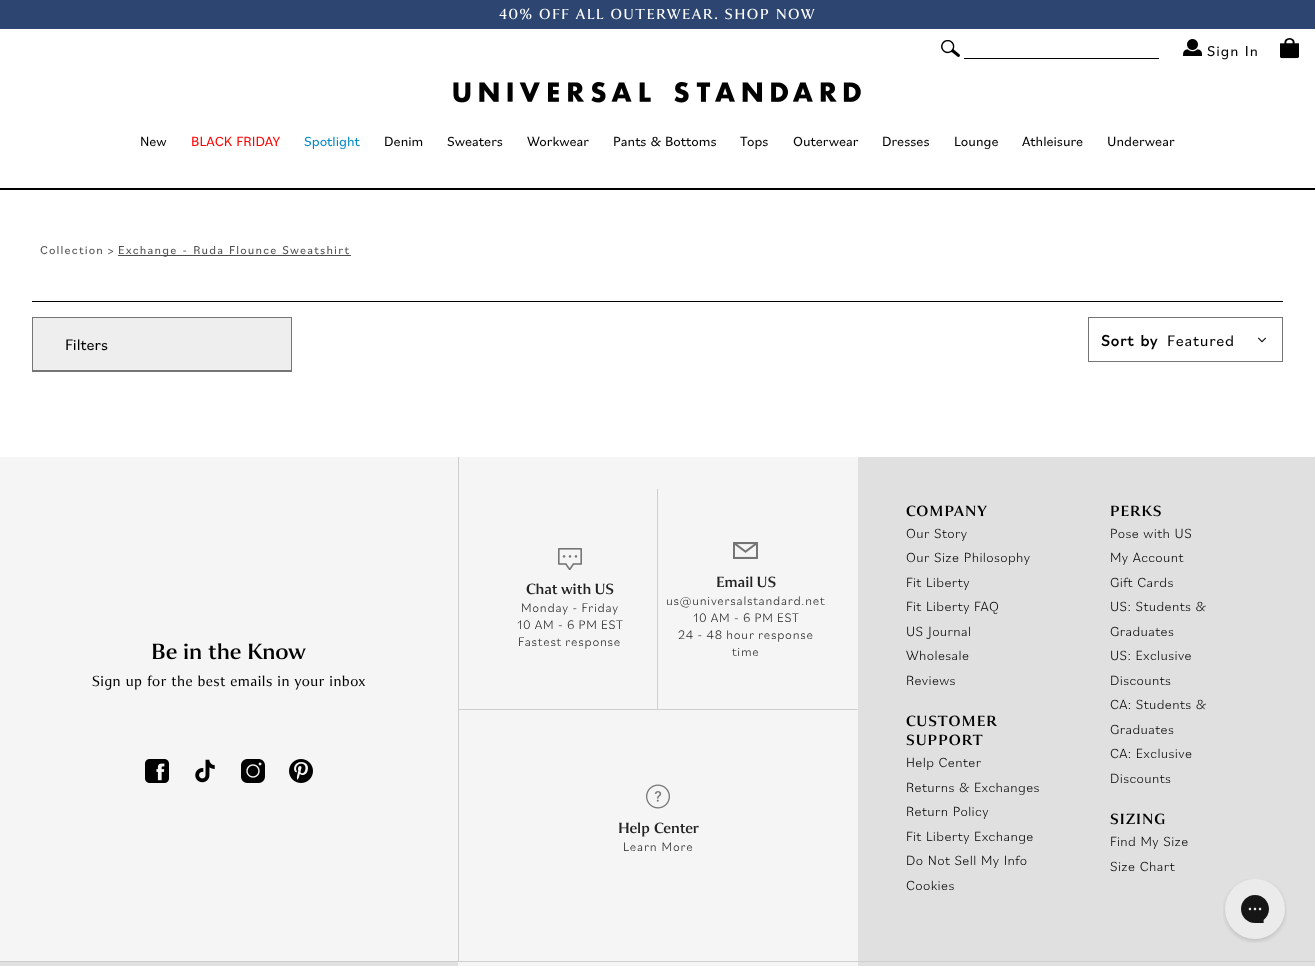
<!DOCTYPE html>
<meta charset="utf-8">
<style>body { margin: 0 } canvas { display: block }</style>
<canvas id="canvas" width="1315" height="966"></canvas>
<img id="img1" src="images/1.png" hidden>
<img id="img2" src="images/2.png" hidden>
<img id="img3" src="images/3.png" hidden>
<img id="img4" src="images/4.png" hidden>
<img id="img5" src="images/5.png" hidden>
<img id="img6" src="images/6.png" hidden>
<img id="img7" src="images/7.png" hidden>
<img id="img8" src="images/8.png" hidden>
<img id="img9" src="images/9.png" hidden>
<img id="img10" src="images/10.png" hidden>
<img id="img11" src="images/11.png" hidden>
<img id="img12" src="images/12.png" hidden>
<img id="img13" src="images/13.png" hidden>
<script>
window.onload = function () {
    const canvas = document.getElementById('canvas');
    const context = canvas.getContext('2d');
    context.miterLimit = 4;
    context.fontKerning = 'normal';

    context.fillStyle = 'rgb(255, 255, 255)';
    context.fillRect(0, 0, 1315, 966);
    context.fillStyle = 'rgb(44, 69, 113)';
    context.fillRect(0, 0, 1315, 29);
    context.drawImage(document.getElementById('img1'), 941, 40, 19, 17);
    context.fillStyle = 'rgb(0, 0, 0)';
    context.fillRect(964, 58, 195, 1);
    context.drawImage(document.getElementById('img2'), 1183, 39, 19, 17);
    context.drawImage(document.getElementById('img3'), 1280, 38, 19, 21);
    context.drawImage(document.getElementById('img4'), 453, 82, 408, 21);
    context.fillRect(0, 188, 1315, 2);
    context.fillStyle = 'rgb(77, 77, 77)';
    context.fillRect(118, 255, 233, 1);
    context.fillStyle = 'rgb(0, 0, 0)';
    context.fillRect(32, 301, 1251, 1);
    context.strokeStyle = 'rgb(117, 117, 117)';
    context.strokeRect(32.5, 317.5, 259, 54);
    context.fillStyle = 'rgb(238, 238, 238)';
    context.fillRect(33, 318, 258, 52);
    context.fillStyle = 'rgb(117, 117, 117)';
    context.fillRect(33, 370, 258, 1);
    context.strokeRect(1088.5, 317.5, 194, 44);
    context.drawImage(document.getElementById('img5'), 1258, 337, 8, 6);
    context.fillStyle = 'rgb(245, 245, 245)';
    context.fillRect(0, 457, 458, 504);
    context.drawImage(document.getElementById('img6'), 145, 759, 24, 24);
    context.drawImage(document.getElementById('img7'), 195, 759, 20, 24);
    context.drawImage(document.getElementById('img8'), 241, 759, 24, 24);
    context.drawImage(document.getElementById('img9'), 289, 759, 24, 24);
    context.fillRect(459, 457, 399, 504);
    context.fillStyle = 'rgb(207, 207, 207)';
    context.fillRect(458, 457, 1, 504);
    context.fillRect(657, 489, 1, 220);
    context.drawImage(document.getElementById('img10'), 558, 548, 24, 22);
    context.drawImage(document.getElementById('img11'), 733, 542, 25, 17);
    context.fillRect(459, 709, 399, 1);
    context.drawImage(document.getElementById('img12'), 646, 784, 24, 25);
    context.fillStyle = 'rgb(224, 224, 224)';
    context.fillRect(858, 457, 457, 504);
    context.fillStyle = 'rgb(207, 207, 207)';
    context.fillRect(0, 961, 1315, 1);
    context.fillStyle = 'rgb(224, 224, 224)';
    context.fillRect(0, 962, 458, 4);
    context.fillStyle = 'rgb(245, 245, 245)';
    context.fillRect(458, 962, 400, 4);
    context.fillStyle = 'rgb(224, 224, 224)';
    context.fillRect(858, 962, 457, 4);
    context.drawImage(document.getElementById('img13'), 1223, 879, 64, 64);
    context.letterSpacing = '1.4px';
    context.wordSpacing = '1px';
    context.font = '16px "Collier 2"';
    context.fillStyle = 'rgb(255, 255, 255)';
    context.fillText('40% OFF ALL OUTERWEAR. SHOP NOW', 499, 19);
    context.letterSpacing = '1px';
    context.font = '15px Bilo';
    context.fillStyle = 'rgb(0, 0, 0)';
    context.fillText('Sign In', 1207, 56);
    context.letterSpacing = '0px';
    context.wordSpacing = '0px';
    context.font = '14px Bilo';
    context.fillText('New', 140, 146);
    context.wordSpacing = '1px';
    context.fillStyle = 'rgb(255, 3, 3)';
    context.fillText('BLACK FRIDAY', 191, 146);
    context.wordSpacing = '0px';
    context.fillStyle = 'rgb(0, 137, 199)';
    context.fillText('Spotlight', 304, 146);
    context.fillStyle = 'rgb(0, 0, 0)';
    context.fillText('Denim', 384, 146);
    context.fillText('Sweaters', 447, 146);
    context.fillText('Workwear', 527, 146);
    context.wordSpacing = '1px';
    context.fillText('Pants & Bottoms', 613, 146);
    context.wordSpacing = '0px';
    context.fillText('Tops', 740, 146);
    context.fillText('Outerwear', 793, 146);
    context.fillText('Dresses', 882, 146);
    context.fillText('Lounge', 954, 146);
    context.fillText('Athleisure', 1022, 146);
    context.fillText('Underwear', 1107, 146);
    context.letterSpacing = '1.2px';
    context.font = '12px Bilo';
    context.fillStyle = 'rgb(77, 77, 77)';
    context.fillText('Collection', 40, 254);
    context.fillText('>', 107, 254);
    context.wordSpacing = '1px';
    context.fillText('Exchange - Ruda Flounce Sweatshirt', 118, 254);
    context.letterSpacing = '0px';
    context.wordSpacing = '0px';
    context.font = '16px Bilo';
    context.fillStyle = 'rgb(0, 0, 0)';
    context.fillText('Filters', 65, 350);
    context.letterSpacing = '0.75px';
    context.wordSpacing = '2px';
    context.font = 'bold 16px Bilo';
    context.fillText('Sort by', 1101, 346);
    context.wordSpacing = '0px';
    context.font = '16px Bilo';
    context.fillText('Featured', 1167, 346);
    context.letterSpacing = '0px';
    context.wordSpacing = '1px';
    context.font = '24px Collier';
    context.fillText('Be in the Know', 151, 659);
    context.letterSpacing = '0.5px';
    context.font = '300 16px Collier';
    context.fillText('Sign up for the best emails in your inbox', 92, 686);
    context.letterSpacing = '0px';
    context.wordSpacing = '0px';
    context.font = '16px Collier';
    context.fillStyle = 'rgb(34, 34, 34)';
    context.fillText('Chat with US', 526, 594);
    context.letterSpacing = '0.75px';
    context.font = '300 13px Bilo';
    context.fillText('Monday - Friday', 521, 612);
    context.fillText('10 AM - 6 PM EST', 517, 629);
    context.fillText('Fastest response', 518, 646);
    context.letterSpacing = '0px';
    context.font = '16px Collier';
    context.fillText('Email US', 716, 587);
    context.letterSpacing = '0.75px';
    context.font = '300 13px Bilo';
    context.fillText('us@universalstandard.net', 666, 605);
    context.fillText('10 AM - 6 PM EST', 693, 622);
    context.fillText('24 - 48 hour response', 678, 639);
    context.fillText('time', 732, 656);
    context.letterSpacing = '0px';
    context.wordSpacing = '1px';
    context.font = '16px Collier';
    context.fillText('Help Center', 618, 833);
    context.letterSpacing = '0.75px';
    context.font = '300 13px Bilo';
    context.fillText('Learn More', 623, 851);
    context.letterSpacing = '1px';
    context.wordSpacing = '0px';
    context.font = '16px Collier';
    context.fillStyle = 'rgb(0, 0, 0)';
    context.fillText('COMPANY', 906, 516);
    context.letterSpacing = '0.4px';
    context.wordSpacing = '1px';
    context.font = '300 14px Bilo';
    context.fillText('Our Story', 906, 538);
    context.fillText('Our Size Philosophy', 906, 562);
    context.fillText('Fit Liberty', 906, 587);
    context.fillText('Fit Liberty FAQ', 906, 611);
    context.fillText('US Journal', 906, 636);
    context.wordSpacing = '0px';
    context.fillText('Wholesale', 906, 660);
    context.fillText('Reviews', 906, 685);
    context.letterSpacing = '1px';
    context.font = '16px Collier';
    context.fillText('CUSTOMER', 906, 726);
    context.fillText('SUPPORT', 906, 745);
    context.letterSpacing = '0.4px';
    context.wordSpacing = '1px';
    context.font = '300 14px Bilo';
    context.fillText('Help Center', 906, 767);
    context.fillText('Returns & Exchanges', 906, 792);
    context.fillText('Return Policy', 906, 816);
    context.fillText('Fit Liberty Exchange', 906, 841);
    context.fillText('Do Not Sell My Info', 906, 865);
    context.wordSpacing = '0px';
    context.fillText('Cookies', 906, 890);
    context.letterSpacing = '1px';
    context.font = '16px Collier';
    context.fillText('PERKS', 1110, 516);
    context.letterSpacing = '0.4px';
    context.wordSpacing = '1px';
    context.font = '300 14px Bilo';
    context.fillText('Pose with US', 1110, 538);
    context.fillText('My Account', 1110, 562);
    context.fillText('Gift Cards', 1110, 587);
    context.fillText('US: Students &', 1110, 611);
    context.wordSpacing = '0px';
    context.fillText('Graduates', 1110, 636);
    context.wordSpacing = '1px';
    context.fillText('US: Exclusive', 1110, 660);
    context.wordSpacing = '0px';
    context.fillText('Discounts', 1110, 685);
    context.wordSpacing = '1px';
    context.fillText('CA: Students &', 1110, 709);
    context.wordSpacing = '0px';
    context.fillText('Graduates', 1110, 734);
    context.wordSpacing = '1px';
    context.fillText('CA: Exclusive', 1110, 758);
    context.wordSpacing = '0px';
    context.fillText('Discounts', 1110, 783);
    context.letterSpacing = '1px';
    context.font = '16px Collier';
    context.fillText('SIZING', 1110, 824);
    context.letterSpacing = '0.4px';
    context.wordSpacing = '1px';
    context.font = '300 14px Bilo';
    context.fillText('Find My Size', 1110, 846);
    context.fillText('Size Chart', 1110, 871);
};
</script>
